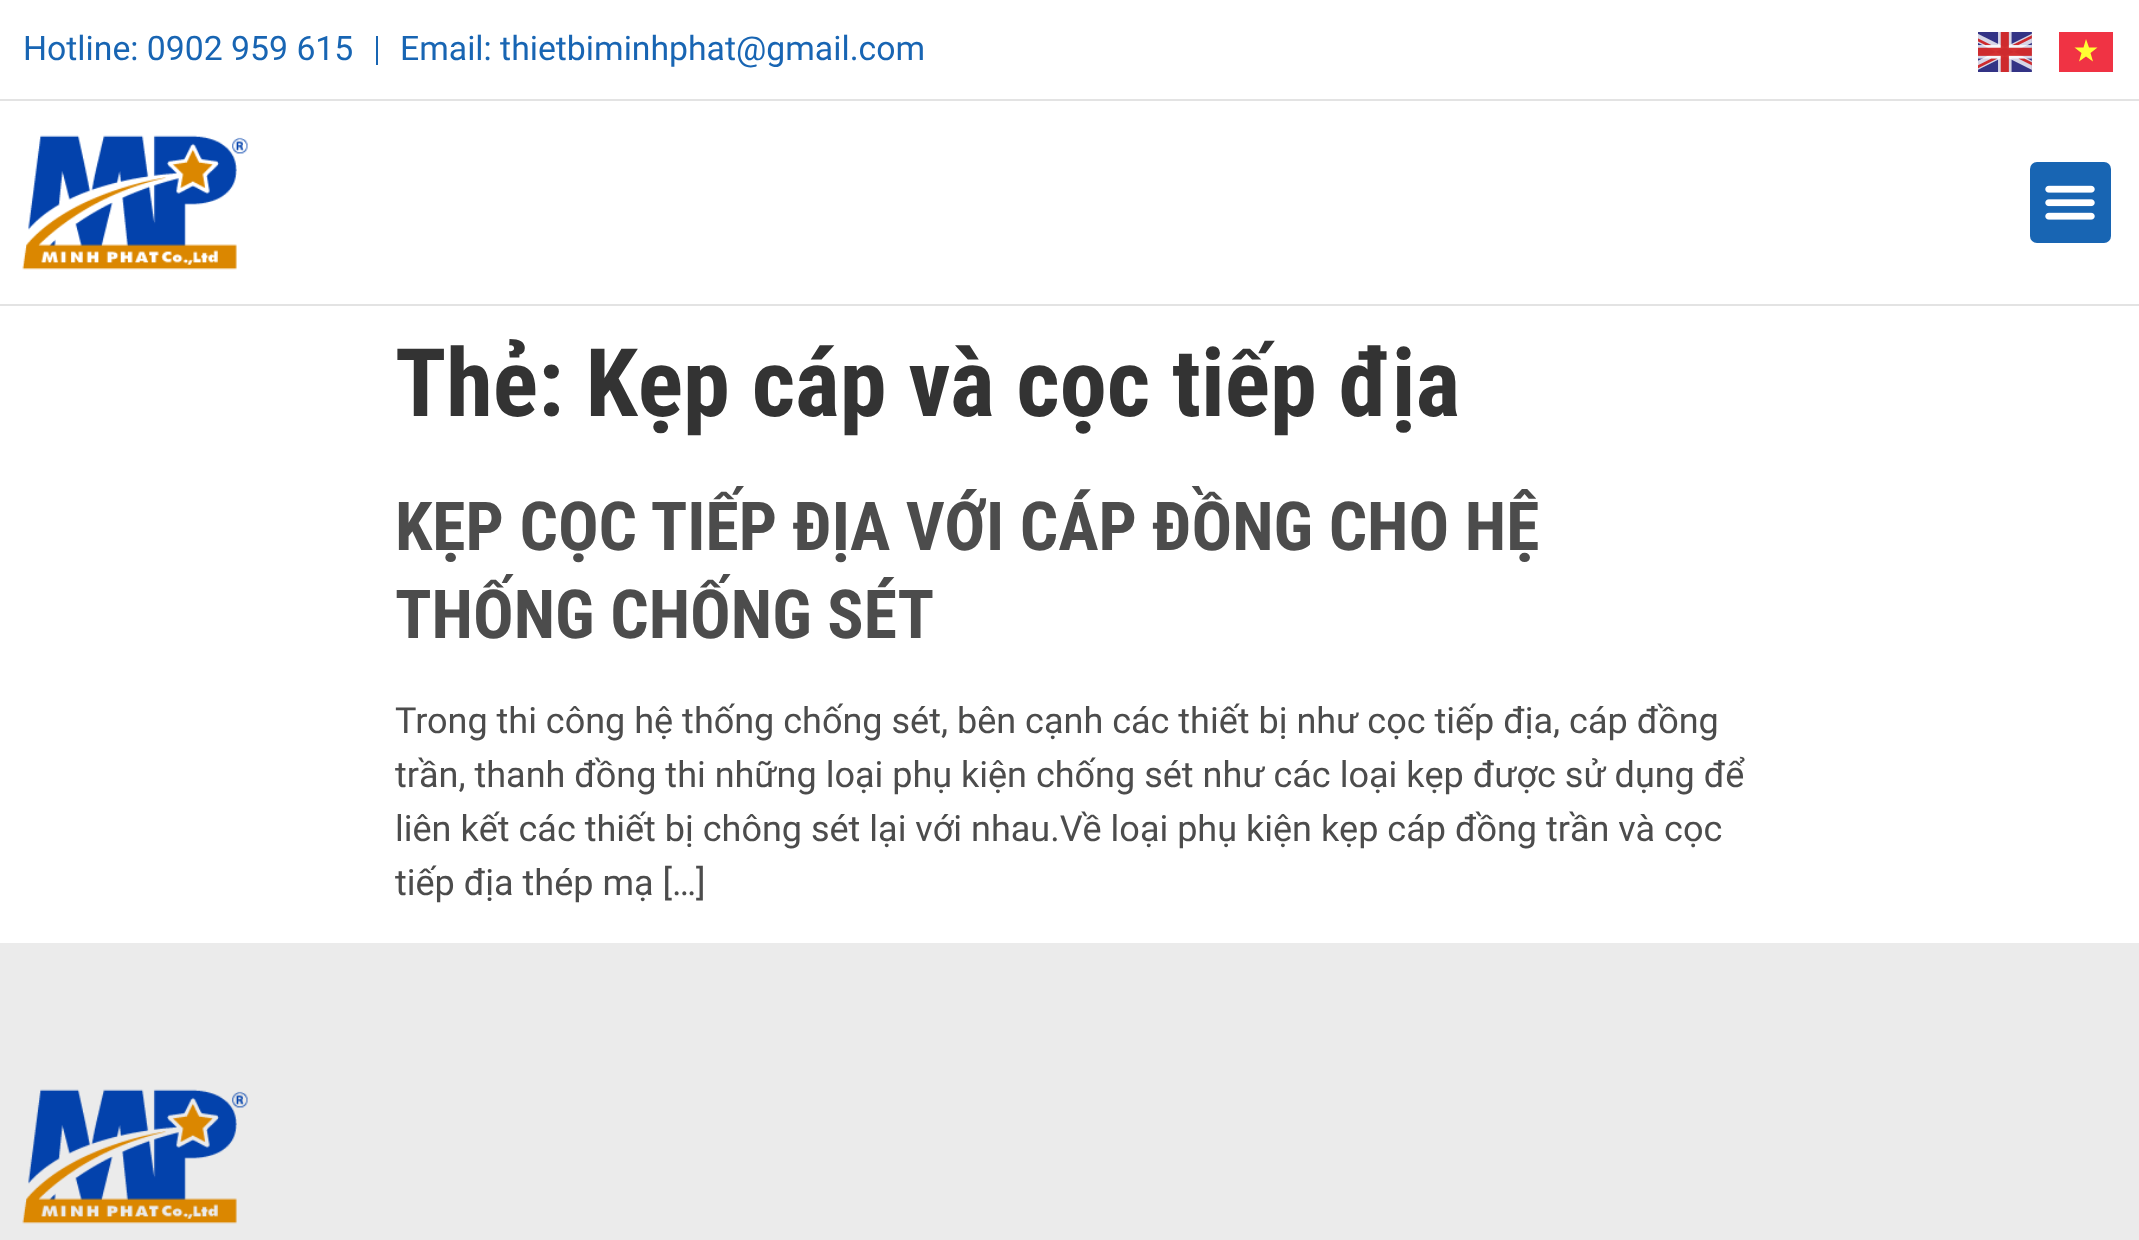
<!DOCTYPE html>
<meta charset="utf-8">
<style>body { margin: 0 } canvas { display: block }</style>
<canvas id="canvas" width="2139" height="1240"></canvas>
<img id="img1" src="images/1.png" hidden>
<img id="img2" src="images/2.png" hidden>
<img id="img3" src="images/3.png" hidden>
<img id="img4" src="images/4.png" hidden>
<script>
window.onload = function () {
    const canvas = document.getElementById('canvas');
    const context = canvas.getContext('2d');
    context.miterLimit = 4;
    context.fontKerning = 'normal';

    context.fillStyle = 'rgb(255, 255, 255)';
    context.fillRect(0, 0, 2139, 1240);
    context.fillStyle = 'rgb(24, 101, 179)';
    context.fillRect(376, 36, 2, 29);
    context.drawImage(document.getElementById('img1'), 1978, 32, 54, 40);
    context.fillStyle = 'rgb(240, 51, 68)';
    context.fillRect(2059, 32, 54, 40);
    context.fillStyle = 'rgb(255, 255, 51)';
    context.beginPath();
    context.moveTo(2093, 61.5);
    context.lineTo(2086, 56.5);
    context.lineTo(2079, 61.5);
    context.lineTo(2081.5, 53);
    context.lineTo(2074.5, 47.5);
    context.lineTo(2083.5, 47.5);
    context.lineTo(2086, 39);
    context.lineTo(2089, 47.5);
    context.lineTo(2097.5, 47.5);
    context.lineTo(2090.5, 53);
    context.closePath();
    context.fill('evenodd');
    context.fillStyle = 'rgb(227, 227, 227)';
    context.fillRect(0, 99, 2139, 2);
    context.fillRect(0, 304, 2139, 2);
    context.drawImage(document.getElementById('img2'), 22, 135, 226, 135);
    context.fillStyle = 'rgb(24, 101, 179)';
    context.beginPath();
    context.roundRect(2030, 162, 81, 81, 7);
    context.fill();
    context.drawImage(document.getElementById('img3'), 2045, 185, 50, 35);
    context.fillStyle = 'rgb(235, 235, 235)';
    context.fillRect(0, 943, 2139, 297);
    context.drawImage(document.getElementById('img4'), 22, 1089, 226, 135);
    context.font = '33.75px Roboto';
    context.fillStyle = 'rgb(24, 101, 179)';
    context.fillText('Hotline: 0902 959 615', 23, 60);
    context.fillText('Email: thietbiminhphat@gmail.com', 400, 60);
    context.font = 'bold 94.5px Roboto Condensed';
    context.fillStyle = 'rgb(51, 51, 51)';
    context.fillText('Thẻ: Kẹp cáp và cọc tiếp địa', 395, 416);
    context.font = 'bold 67.5px Roboto Condensed';
    context.fillStyle = 'rgb(76, 76, 76)';
    context.fillText('KẸP CỌC TIẾP ĐỊA VỚI CÁP ĐỒNG CHO HỆ', 395, 550);
    context.fillText('THỐNG CHỐNG SÉT', 395, 638);
    context.font = '36px Roboto';
    context.fillText('Trong thi công hệ thống chống sét, bên cạnh các thiết bị như cọc tiếp địa, cáp đồng', 395, 733);
    context.fillText('trần, thanh đồng thi những loại phụ kiện chống sét như các loại kẹp được sử dụng để', 395, 787);
    context.fillText('liên kết các thiết bị chông sét lại với nhau.Về loại phụ kiện kẹp cáp đồng trần và cọc', 395, 841);
    context.fillText('tiếp địa thép mạ […]', 395, 895);
};
</script>
